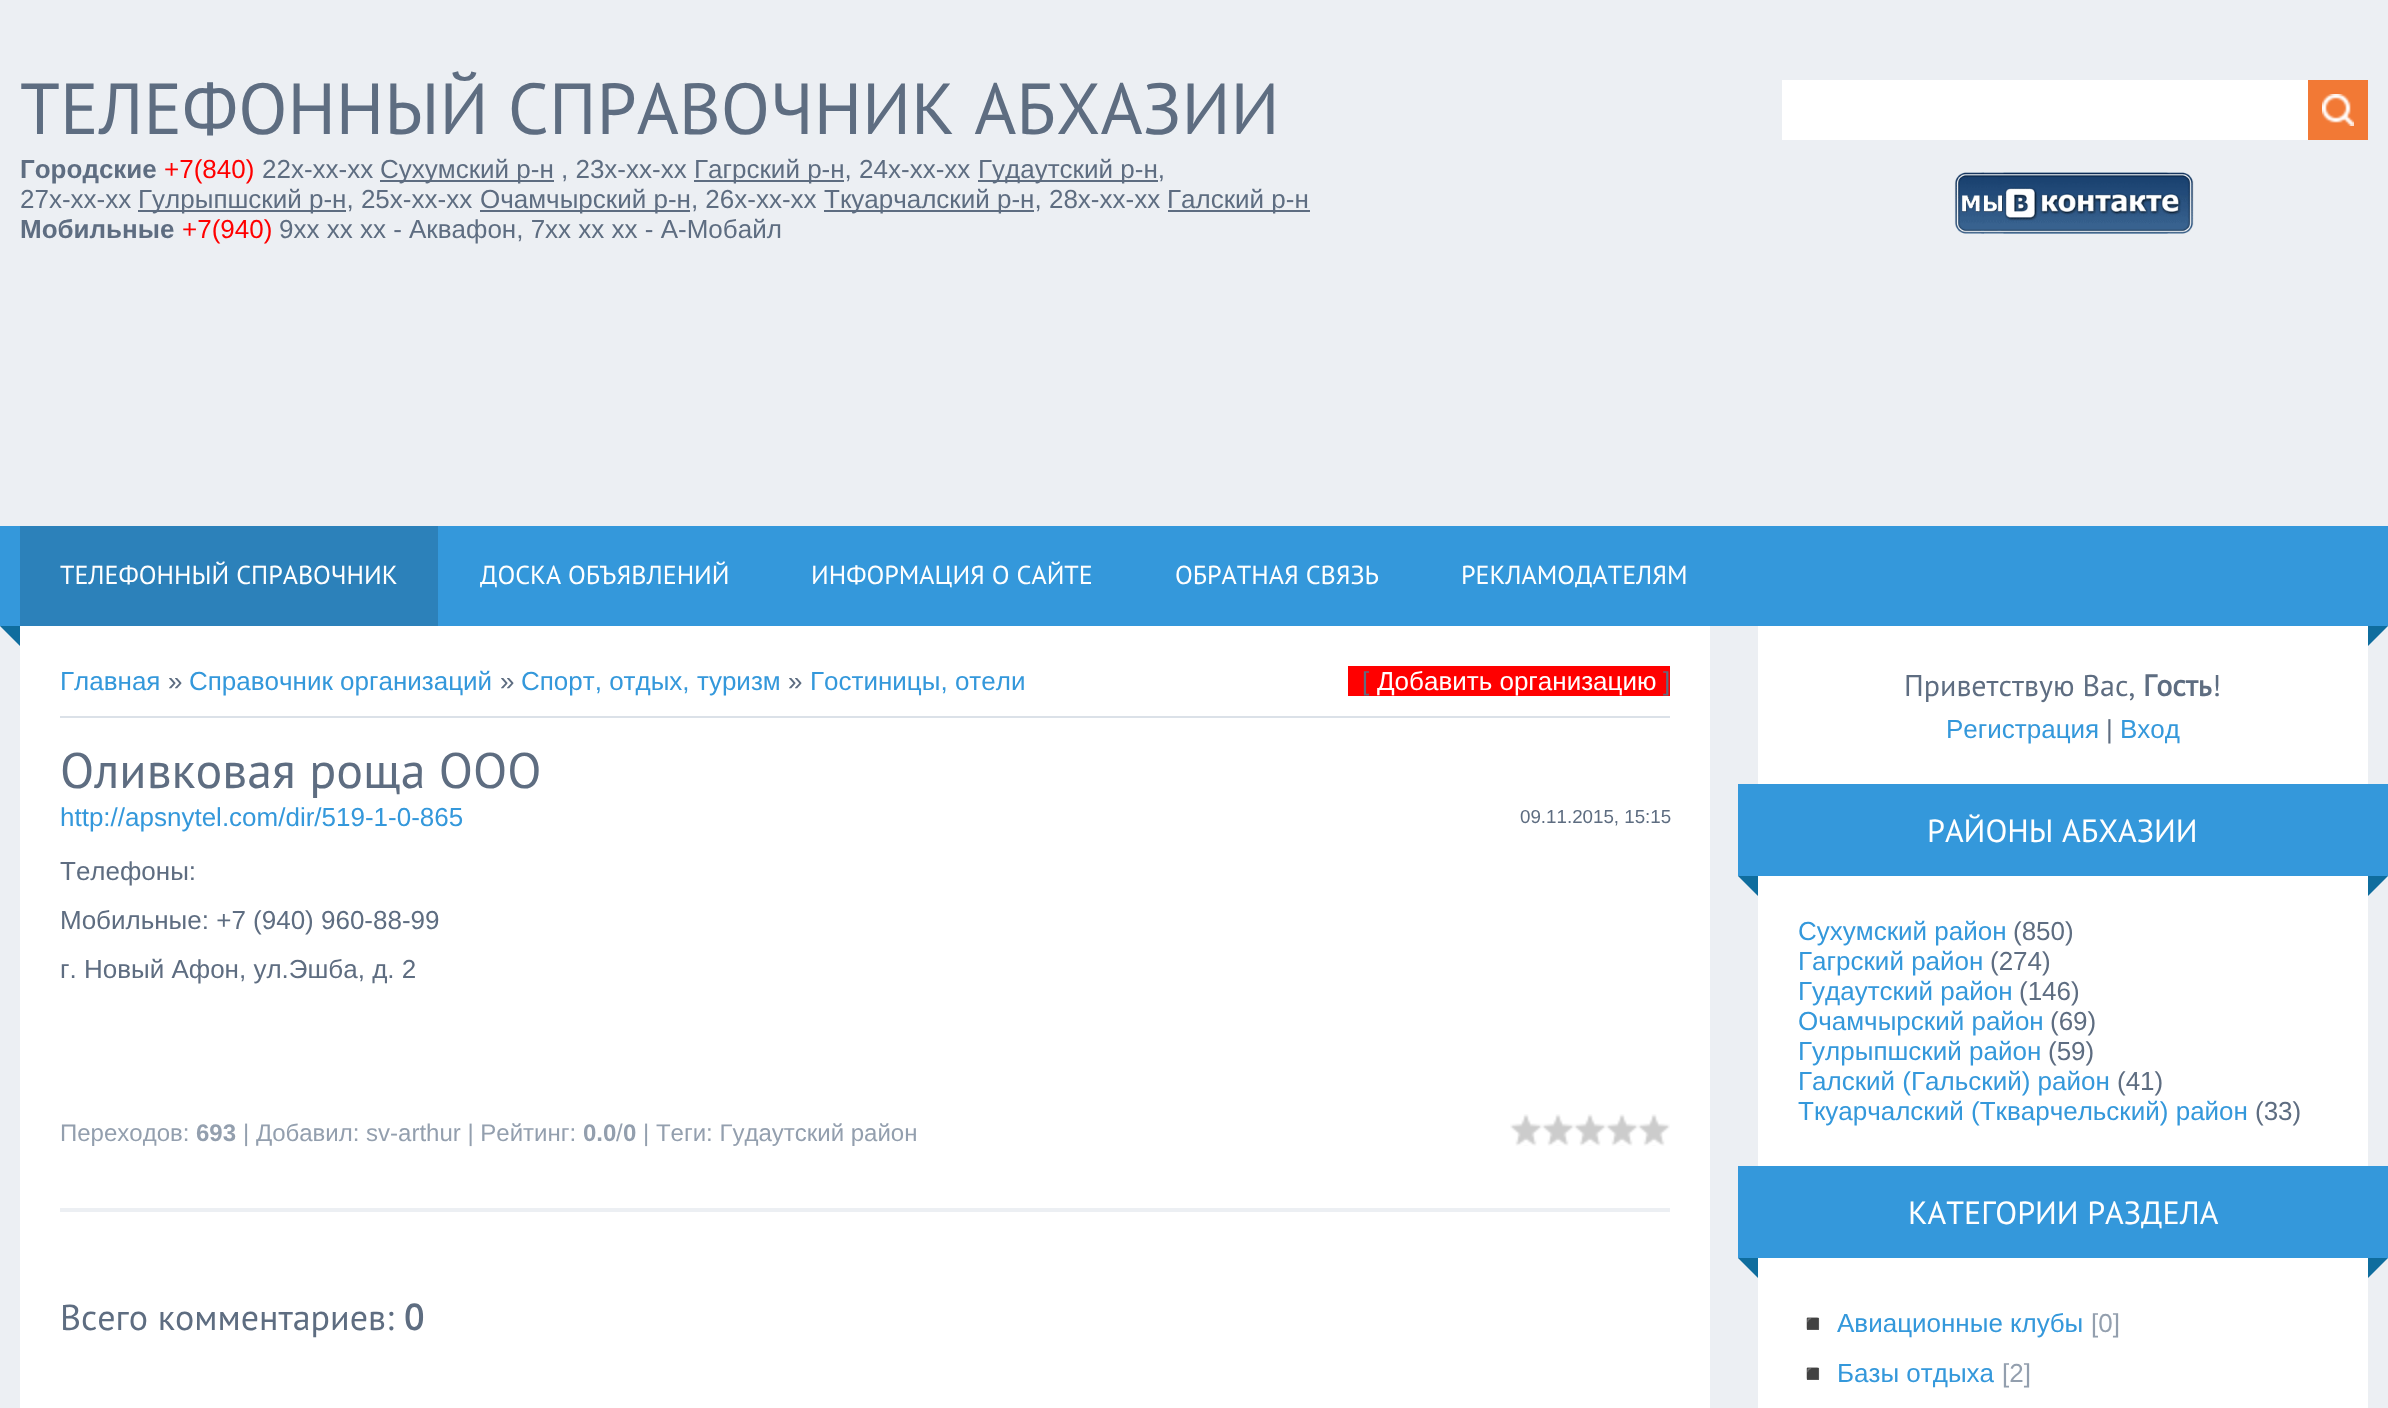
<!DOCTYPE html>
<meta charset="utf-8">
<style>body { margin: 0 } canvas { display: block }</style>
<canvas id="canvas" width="2388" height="1408"></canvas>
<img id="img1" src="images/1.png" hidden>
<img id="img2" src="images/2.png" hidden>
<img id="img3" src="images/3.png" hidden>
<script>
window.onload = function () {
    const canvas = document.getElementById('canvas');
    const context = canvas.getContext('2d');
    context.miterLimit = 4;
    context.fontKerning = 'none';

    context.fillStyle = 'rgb(236, 239, 243)';
    context.fillRect(0, 0, 2388, 1408);
    context.fillStyle = 'rgb(94, 109, 129)';
    context.fillRect(380, 180, 174, 2);
    context.fillRect(694, 180, 150, 2);
    context.fillRect(978, 180, 180, 2);
    context.fillRect(138, 210, 208, 2);
    context.fillRect(480, 210, 210, 2);
    context.fillRect(824, 210, 210, 2);
    context.fillRect(1168, 210, 142, 2);
    context.fillStyle = 'rgb(255, 255, 255)';
    context.fillRect(1782, 80, 526, 60);
    context.fillStyle = 'rgb(242, 121, 53)';
    context.fillRect(2308, 80, 60, 60);
    context.drawImage(document.getElementById('img1'), 2322, 94, 32, 32);
    context.drawImage(document.getElementById('img2'), 1954, 172, 240, 62);
    context.fillStyle = 'rgb(52, 152, 219)';
    context.fillRect(0, 526, 2388, 100);
    context.fillStyle = 'rgb(44, 129, 186)';
    context.fillRect(20, 526, 418, 100);
    context.fillStyle = 'rgb(15, 109, 158)';
    context.beginPath();
    context.moveTo(0, 626);
    context.lineTo(20, 626);
    context.lineTo(20, 646);
    context.closePath();
    context.fill();
    context.beginPath();
    context.moveTo(2368, 626);
    context.lineTo(2388, 626);
    context.lineTo(2368, 646);
    context.closePath();
    context.fill();
    context.fillStyle = 'rgb(255, 255, 255)';
    context.fillRect(20, 626, 1690, 782);
    context.fillStyle = 'rgb(255, 0, 0)';
    context.fillRect(1348, 666, 322, 30);
    context.fillStyle = 'rgb(219, 225, 232)';
    context.fillRect(60, 716, 1610, 2);
    context.fillStyle = 'rgb(236, 239, 243)';
    context.fillRect(60, 1208, 1610, 4);
    context.drawImage(document.getElementById('img3'), 1510, 1114, 160, 32);
    context.fillStyle = 'rgb(255, 255, 255)';
    context.fillRect(1758, 626, 610, 782);
    context.fillStyle = 'rgb(52, 152, 219)';
    context.fillRect(1738, 784, 650, 92);
    context.fillStyle = 'rgb(15, 109, 158)';
    context.beginPath();
    context.moveTo(1738, 876);
    context.lineTo(1758, 876);
    context.lineTo(1758, 896);
    context.closePath();
    context.fill();
    context.beginPath();
    context.moveTo(2368, 876);
    context.lineTo(2388, 876);
    context.lineTo(2368, 896);
    context.closePath();
    context.fill();
    context.fillStyle = 'rgb(52, 152, 219)';
    context.fillRect(1738, 1166, 650, 92);
    context.fillStyle = 'rgb(15, 109, 158)';
    context.beginPath();
    context.moveTo(1738, 1258);
    context.lineTo(1758, 1258);
    context.lineTo(1758, 1278);
    context.closePath();
    context.fill();
    context.beginPath();
    context.moveTo(2368, 1258);
    context.lineTo(2388, 1258);
    context.lineTo(2368, 1278);
    context.closePath();
    context.fill();
    context.font = '72px PT Sans';
    context.fillStyle = 'rgb(94, 109, 129)';
    context.fillText('ТЕЛЕФОННЫЙ СПРАВОЧНИК АБХАЗИИ', 20, 134);
    context.font = 'bold 26px Liberation Sans';
    context.fillText('Городские', 20, 178);
    context.font = '26px Liberation Sans';
    context.fillStyle = 'rgb(255, 0, 0)';
    context.fillText('+7(840)', 164, 178);
    context.fillStyle = 'rgb(94, 109, 129)';
    context.fillText('22х-хх-хх', 262, 178);
    context.fillText('Сухумский р-н , 23х-хх-хх', 380, 178);
    context.fillText('Гагрский р-н, 24х-хх-хх', 694, 178);
    context.fillText('Гудаутский р-н,', 978, 178);
    context.fillText('27х-хх-хх', 20, 208);
    context.fillText('Гулрыпшский р-н, 25х-хх-хх', 138, 208);
    context.fillText('Очамчырский р-н, 26х-хх-хх', 480, 208);
    context.fillText('Ткуарчалский р-н, 28х-хх-хх', 824, 208);
    context.fillText('Галский р-н', 1167, 208);
    context.font = 'bold 26px Liberation Sans';
    context.fillText('Мобильные', 20, 238);
    context.font = '26px Liberation Sans';
    context.fillStyle = 'rgb(255, 0, 0)';
    context.fillText('+7(940)', 182, 238);
    context.fillStyle = 'rgb(94, 109, 129)';
    context.fillText('9хх хх хх - Аквафон, 7хх хх хх - А-Мобайл', 279, 238);
    context.font = '26px PT Sans';
    context.fillStyle = 'rgb(255, 255, 255)';
    context.fillText('ТЕЛЕФОННЫЙ СПРАВОЧНИК', 60, 584);
    context.fillText('ДОСКА ОБЪЯВЛЕНИЙ', 480, 584);
    context.fillText('ИНФОРМАЦИЯ О САЙТЕ', 811, 584);
    context.fillText('ОБРАТНАЯ СВЯЗЬ', 1175, 584);
    context.fillText('РЕКЛАМОДАТЕЛЯМ', 1461, 584);
    context.font = '26px Liberation Sans';
    context.fillStyle = 'rgb(52, 152, 219)';
    context.fillText('Главная', 60, 690);
    context.fillStyle = 'rgb(94, 109, 129)';
    context.fillText('»', 168, 690);
    context.fillStyle = 'rgb(52, 152, 219)';
    context.fillText('Справочник организаций', 189, 690);
    context.fillStyle = 'rgb(94, 109, 129)';
    context.fillText('»', 500, 690);
    context.fillStyle = 'rgb(52, 152, 219)';
    context.fillText('Спорт, отдых,', 521, 690);
    context.fillText('туризм', 697, 690);
    context.fillStyle = 'rgb(94, 109, 129)';
    context.fillText('»', 788, 690);
    context.fillStyle = 'rgb(52, 152, 219)';
    context.fillText('Гостиницы, отели', 810, 690);
    context.fillStyle = 'rgb(94, 109, 129)';
    context.fillText('[', 1362, 690);
    context.fillStyle = 'rgb(255, 255, 255)';
    context.fillText('Добавить организацию', 1377, 690);
    context.fillStyle = 'rgb(94, 109, 129)';
    context.fillText(']', 1663, 690);
    context.font = '50px PT Sans';
    context.fillText('Оливковая роща ООО', 60, 788);
    context.font = '26px Liberation Sans';
    context.fillStyle = 'rgb(52, 152, 219)';
    context.fillText('http://apsnytel.com/dir/519-1-0-865', 60, 826);
    context.font = '18.75px Liberation Sans';
    context.fillStyle = 'rgb(94, 109, 129)';
    context.fillText('09.11.2015, 15:15', 1520, 823);
    context.font = '26px Liberation Sans';
    context.fillText('Телефоны:', 60, 880);
    context.fillText('Мобильные: +7 (940) 960-88-99', 60, 929);
    context.fillText('г. Новый Афон, ул.Эшба, д. 2', 60, 978);
    context.font = '24px Liberation Sans';
    context.fillStyle = 'rgb(147, 159, 174)';
    context.fillText('Переходов:', 60, 1141);
    context.font = 'bold 24px Liberation Sans';
    context.fillText('693', 196, 1141);
    context.font = '24px Liberation Sans';
    context.fillText('| Добавил: sv-arthur | Рейтинг:', 243, 1141);
    context.fillText('| Теги: Гудаутский район', 643, 1141);
    context.font = 'bold 24px Liberation Sans';
    context.fillText('0.0 0', 583, 1141);
    context.font = '24px Liberation Sans';
    context.fillText('/', 616, 1141);
    context.font = '36px PT Sans';
    context.fillStyle = 'rgb(94, 109, 129)';
    context.fillText('Всего комментариев:', 60, 1330);
    context.font = 'bold 36px PT Sans';
    context.fillText('0', 404, 1330);
    context.font = '30px PT Sans';
    context.fillText('Приветствую Вас,', 1904, 696);
    context.font = 'bold 30px PT Sans';
    context.fillText('Гость', 2143, 696);
    context.font = '30px PT Sans';
    context.fillText('!', 2212, 696);
    context.font = '26px Liberation Sans';
    context.fillStyle = 'rgb(52, 152, 219)';
    context.fillText('Регистрация', 1946, 738);
    context.fillStyle = 'rgb(94, 109, 129)';
    context.fillText('|', 2106, 738);
    context.fillStyle = 'rgb(52, 152, 219)';
    context.fillText('Вход', 2120, 738);
    context.font = '32px PT Sans';
    context.fillStyle = 'rgb(255, 255, 255)';
    context.fillText('РАЙОНЫ АБХАЗИИ', 1927, 842);
    context.font = '26px Liberation Sans';
    context.fillStyle = 'rgb(52, 152, 219)';
    context.fillText('Сухумский район', 1798, 940);
    context.fillStyle = 'rgb(94, 109, 129)';
    context.fillText('(850)', 2013, 940);
    context.fillStyle = 'rgb(52, 152, 219)';
    context.fillText('Гагрский район', 1798, 970);
    context.fillStyle = 'rgb(94, 109, 129)';
    context.fillText('(274)', 1990, 970);
    context.fillStyle = 'rgb(52, 152, 219)';
    context.fillText('Гудаутский район', 1798, 1000);
    context.fillStyle = 'rgb(94, 109, 129)';
    context.fillText('(146)', 2019, 1000);
    context.fillStyle = 'rgb(52, 152, 219)';
    context.fillText('Очамчырский район', 1798, 1030);
    context.fillStyle = 'rgb(94, 109, 129)';
    context.fillText('(69)', 2050, 1030);
    context.fillStyle = 'rgb(52, 152, 219)';
    context.fillText('Гулрыпшский район', 1798, 1060);
    context.fillStyle = 'rgb(94, 109, 129)';
    context.fillText('(59)', 2048, 1060);
    context.fillStyle = 'rgb(52, 152, 219)';
    context.fillText('Галский (Гальский) район', 1798, 1090);
    context.fillStyle = 'rgb(94, 109, 129)';
    context.fillText('(41)', 2117, 1090);
    context.fillStyle = 'rgb(52, 152, 219)';
    context.fillText('Ткуарчалский (Ткварчельский) район', 1798, 1120);
    context.fillStyle = 'rgb(94, 109, 129)';
    context.fillText('(33)', 2255, 1120);
    context.font = '32px PT Sans';
    context.fillStyle = 'rgb(255, 255, 255)';
    context.fillText('КАТЕГОРИИ РАЗДЕЛА', 1908, 1224);
    context.font = '24px Noto Color Emoji';
    context.fillStyle = 'rgb(218, 221, 223)';
    context.fillText('◾', 1798, 1332);
    context.font = '26px Liberation Sans';
    context.fillStyle = 'rgb(52, 152, 219)';
    context.fillText('Авиационные клубы', 1837, 1332);
    context.fillStyle = 'rgb(147, 159, 174)';
    context.fillText('[0]', 2091, 1332);
    context.font = '24px Noto Color Emoji';
    context.fillStyle = 'rgb(218, 221, 223)';
    context.fillText('◾', 1798, 1382);
    context.font = '26px Liberation Sans';
    context.fillStyle = 'rgb(52, 152, 219)';
    context.fillText('Базы отдыха', 1837, 1382);
    context.fillStyle = 'rgb(147, 159, 174)';
    context.fillText('[2]', 2002, 1382);
};
</script>
